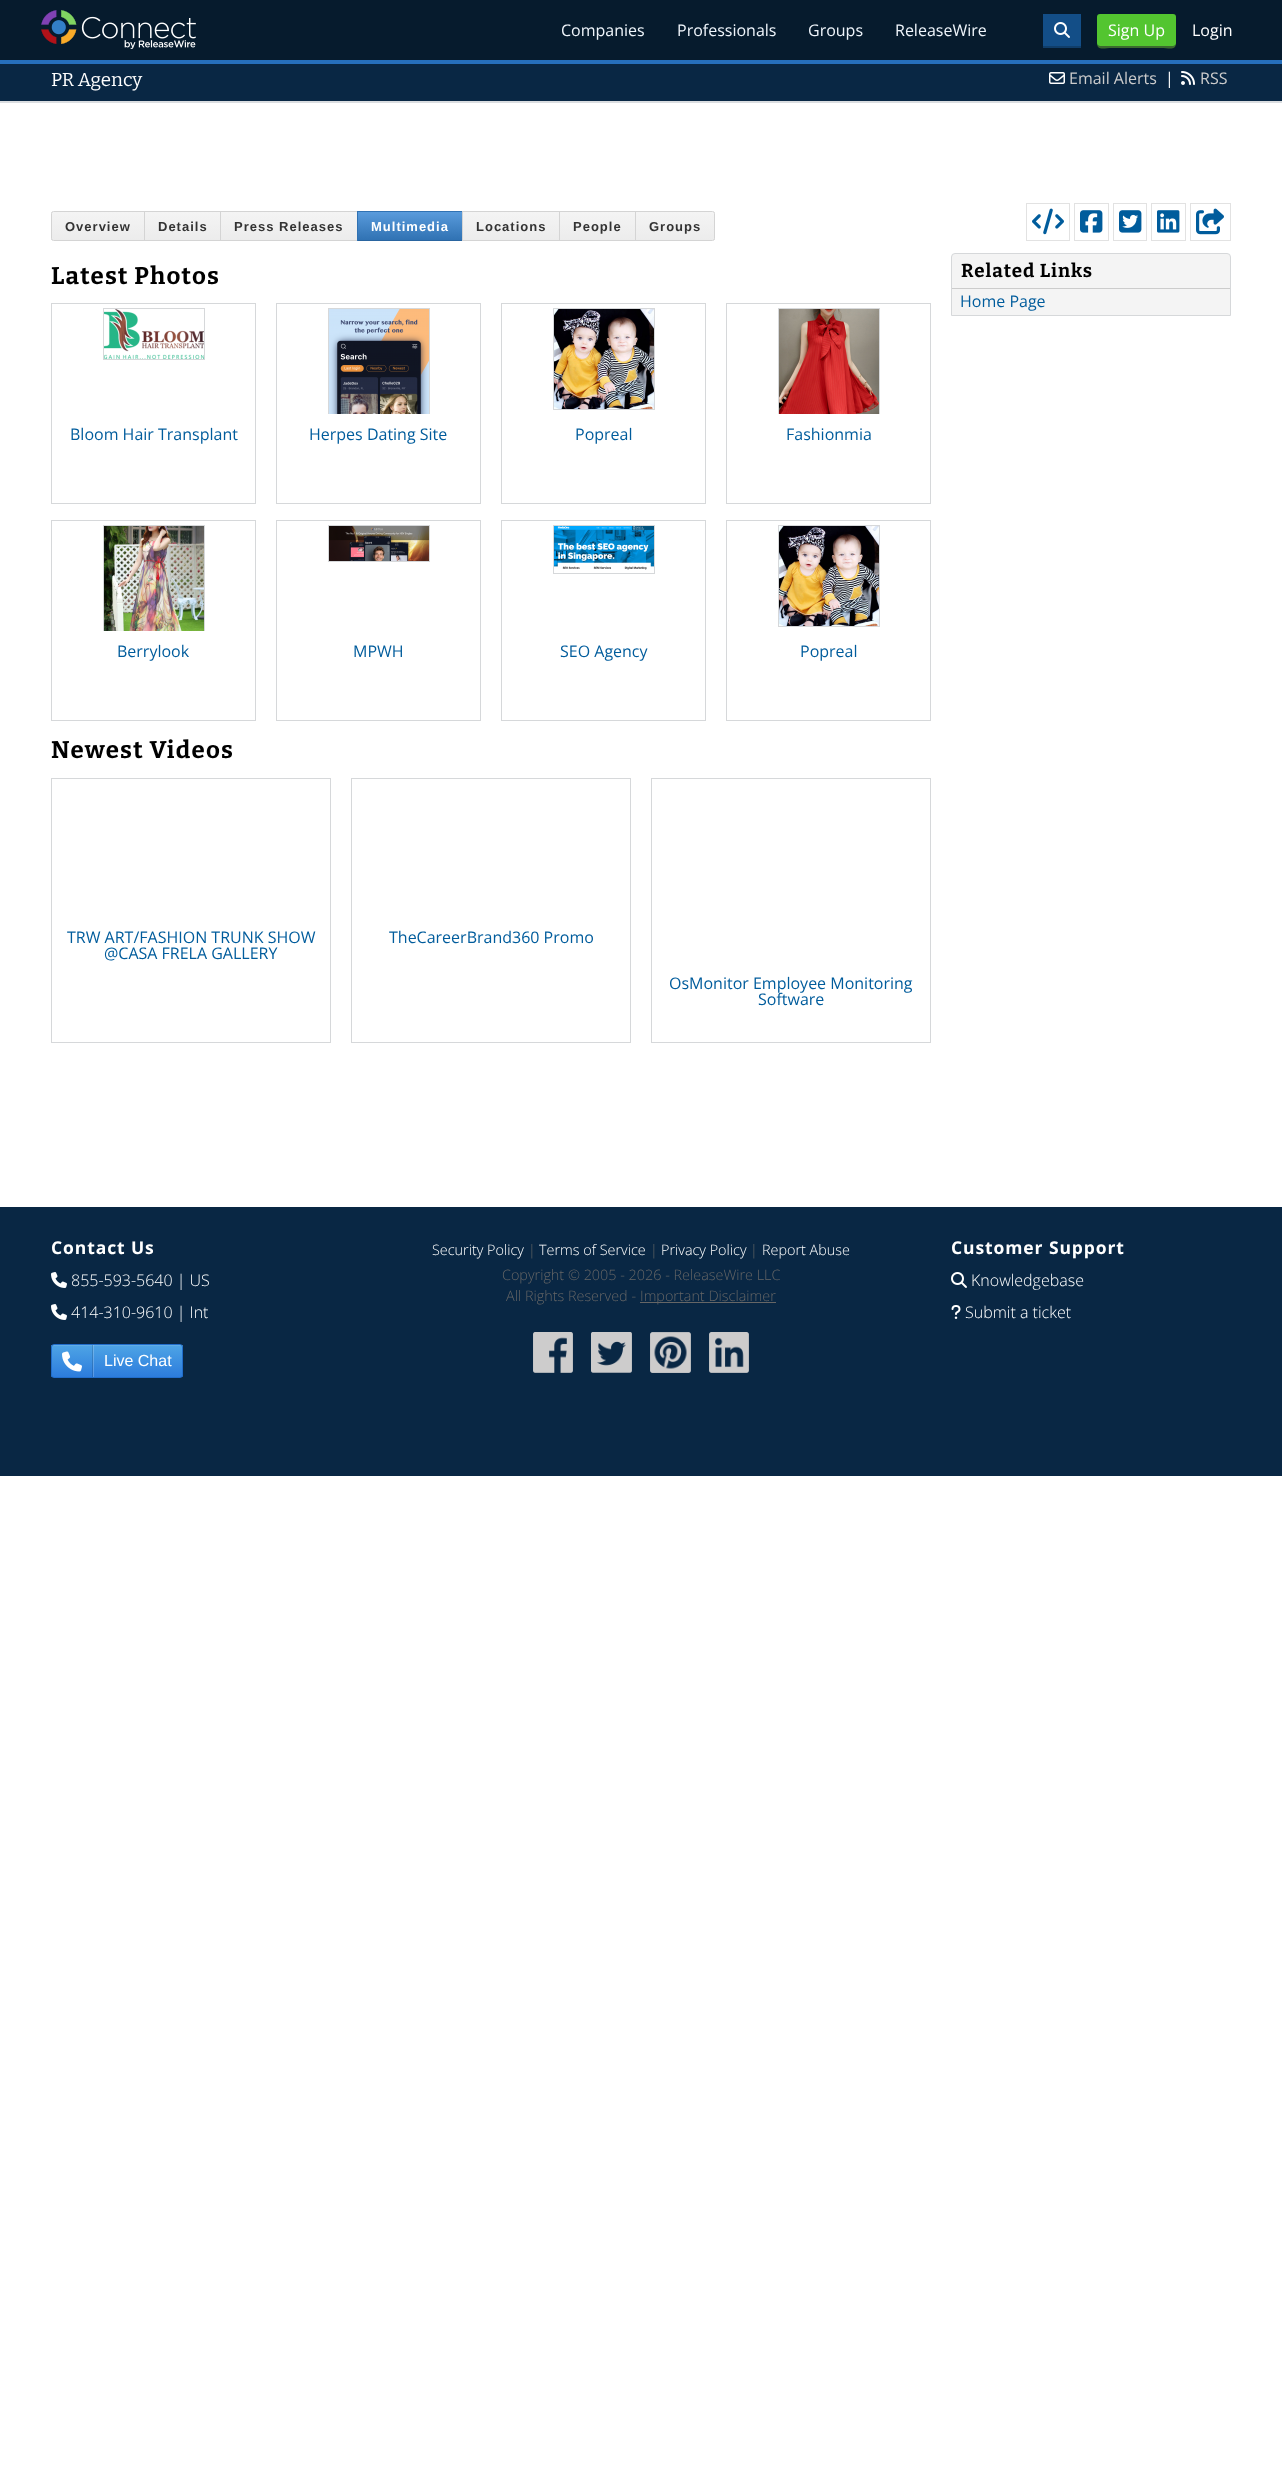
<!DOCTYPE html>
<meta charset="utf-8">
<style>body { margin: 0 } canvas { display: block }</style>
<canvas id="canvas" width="1282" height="2485"></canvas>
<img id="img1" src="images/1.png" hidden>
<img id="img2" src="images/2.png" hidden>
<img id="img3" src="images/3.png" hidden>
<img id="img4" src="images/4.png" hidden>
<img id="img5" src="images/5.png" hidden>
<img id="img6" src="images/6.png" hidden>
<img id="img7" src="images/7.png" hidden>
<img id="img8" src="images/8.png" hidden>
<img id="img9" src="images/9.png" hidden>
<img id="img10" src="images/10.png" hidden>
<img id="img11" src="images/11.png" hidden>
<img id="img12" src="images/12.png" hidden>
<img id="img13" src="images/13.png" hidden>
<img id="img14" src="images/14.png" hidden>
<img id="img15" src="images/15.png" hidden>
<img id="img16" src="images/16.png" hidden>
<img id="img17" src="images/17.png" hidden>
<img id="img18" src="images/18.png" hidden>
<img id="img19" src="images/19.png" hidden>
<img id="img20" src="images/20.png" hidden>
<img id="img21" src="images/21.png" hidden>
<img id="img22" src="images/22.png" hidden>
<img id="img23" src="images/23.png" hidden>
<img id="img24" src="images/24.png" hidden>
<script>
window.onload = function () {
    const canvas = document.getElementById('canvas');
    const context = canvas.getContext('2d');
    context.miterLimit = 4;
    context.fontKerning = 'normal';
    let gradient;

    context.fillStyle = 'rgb(255, 255, 255)';
    context.fillRect(0, 0, 1282, 2485);
    context.fillStyle = 'rgb(6, 27, 45)';
    context.fillRect(0, 0, 1282, 60);
    context.fillStyle = 'rgb(38, 111, 188)';
    context.fillRect(0, 60, 1282, 4);
    context.drawImage(document.getElementById('img1'), 41, 10, 155, 39);
    context.fillStyle = 'rgb(16, 62, 106)';
    context.fillRect(1043, 46, 38, 2);
    context.fillStyle = 'rgb(19, 78, 135)';
    context.fillRect(1043, 14, 38, 32);
    context.drawImage(document.getElementById('img2'), 1054, 22, 16, 16);
    context.fillStyle = 'rgb(59, 106, 46)';
    context.beginPath();
    context.moveTo(1097, 43);
    context.bezierCurveTo(1097, 51, 1104, 48, 1112, 48);
    context.lineTo(1161, 48);
    context.bezierCurveTo(1169, 48, 1176, 51, 1176, 43);
    context.bezierCurveTo(1176, 45, 1175, 46, 1173, 46);
    context.lineTo(1100, 46);
    context.bezierCurveTo(1098, 46, 1097, 45, 1097, 43);
    context.closePath();
    context.fill();
    context.fillStyle = 'rgb(83, 197, 48)';
    context.beginPath();
    context.roundRect(1097, 14, 79, 32, 3);
    context.fill();
    context.fillStyle = 'rgb(9, 39, 68)';
    context.fillRect(0, 64, 1282, 37);
    context.fillStyle = 'rgb(218, 221, 224)';
    context.fillRect(0, 101, 1282, 2);
    context.drawImage(document.getElementById('img3'), 1049, 72, 16, 12);
    context.drawImage(document.getElementById('img4'), 1181, 71, 14, 14);
    gradient = context.createLinearGradient(98, 212, 98, 240);
    gradient.addColorStop(0, 'rgb(244, 244, 244)');
    gradient.addColorStop(1, 'rgb(236, 236, 236)');
    context.fillStyle = gradient;
    context.fillRect(51, 212, 93, 28);
    context.beginPath();
    context.roundRect(51.5, 211.5, 93, 29, [2, 0, 0, 2]);
    context.strokeStyle = 'rgb(212, 212, 212)';
    context.stroke();
    gradient = context.createLinearGradient(183, 212, 183, 240);
    gradient.addColorStop(0, 'rgb(244, 244, 244)');
    gradient.addColorStop(1, 'rgb(236, 236, 236)');
    context.fillStyle = gradient;
    context.fillRect(145, 212, 75, 28);
    context.strokeRect(144.5, 211.5, 76, 29);
    gradient = context.createLinearGradient(289, 212, 289, 240);
    gradient.addColorStop(0, 'rgb(244, 244, 244)');
    gradient.addColorStop(1, 'rgb(236, 236, 236)');
    context.fillStyle = gradient;
    context.fillRect(221, 212, 136, 28);
    context.strokeRect(220.5, 211.5, 137, 29);
    context.fillStyle = 'rgb(48, 114, 179)';
    context.fillRect(358, 211, 104, 1);
    gradient = context.createLinearGradient(410, 212, 410, 240);
    gradient.addColorStop(0, 'rgb(89, 155, 220)');
    gradient.addColorStop(1, 'rgb(48, 114, 179)');
    context.fillStyle = gradient;
    context.fillRect(358, 212, 104, 28);
    context.fillStyle = 'rgb(42, 101, 160)';
    context.fillRect(357, 240, 106, 1);
    context.fillStyle = 'rgb(48, 114, 179)';
    context.fillRect(357, 211, 1, 30);
    gradient = context.createLinearGradient(511, 212, 511, 240);
    gradient.addColorStop(0, 'rgb(244, 244, 244)');
    gradient.addColorStop(1, 'rgb(236, 236, 236)');
    context.fillStyle = gradient;
    context.fillRect(463, 212, 96, 28);
    context.strokeRect(462.5, 211.5, 97, 29);
    gradient = context.createLinearGradient(598, 212, 598, 240);
    gradient.addColorStop(0, 'rgb(244, 244, 244)');
    gradient.addColorStop(1, 'rgb(236, 236, 236)');
    context.fillStyle = gradient;
    context.fillRect(560, 212, 75, 28);
    context.strokeRect(559.5, 211.5, 76, 29);
    gradient = context.createLinearGradient(675, 212, 675, 240);
    gradient.addColorStop(0, 'rgb(244, 244, 244)');
    gradient.addColorStop(1, 'rgb(236, 236, 236)');
    context.fillStyle = gradient;
    context.fillRect(636, 212, 79, 28);
    context.beginPath();
    context.roundRect(635.5, 211.5, 79, 29, [0, 2, 2, 0]);
    context.stroke();
    context.strokeStyle = 'rgb(214, 216, 218)';
    context.strokeRect(51.5, 303.5, 204, 200);
    context.strokeRect(103.5, 308.5, 101, 51);
    context.drawImage(document.getElementById('img5'), 104, 309, 100, 50);
    context.strokeRect(276.5, 303.5, 204, 200);
    context.save();
    context.beginPath();
    context.rect(277, 304, 203, 110);
    context.clip();
    context.strokeRect(328.5, 308.5, 101, 179);
    context.restore();
    context.drawImage(document.getElementById('img6'), 329, 309, 100, 105);
    context.strokeRect(501.5, 303.5, 204, 200);
    context.strokeRect(553.5, 308.5, 101, 101);
    context.drawImage(document.getElementById('img7'), 554, 309, 100, 100);
    context.strokeRect(726.5, 303.5, 204, 200);
    context.save();
    context.beginPath();
    context.rect(727, 304, 203, 110);
    context.clip();
    context.strokeRect(778.5, 308.5, 101, 134);
    context.restore();
    context.drawImage(document.getElementById('img8'), 779, 309, 100, 105);
    context.strokeRect(51.5, 520.5, 204, 200);
    context.save();
    context.beginPath();
    context.rect(52, 521, 203, 110);
    context.clip();
    context.strokeRect(103.5, 525.5, 101, 134);
    context.restore();
    context.drawImage(document.getElementById('img9'), 104, 526, 100, 105);
    context.strokeRect(276.5, 520.5, 204, 200);
    context.strokeRect(328.5, 525.5, 101, 36);
    context.drawImage(document.getElementById('img10'), 329, 526, 100, 35);
    context.strokeRect(501.5, 520.5, 204, 200);
    context.strokeRect(553.5, 525.5, 101, 48);
    context.drawImage(document.getElementById('img11'), 554, 526, 100, 44);
    context.strokeRect(726.5, 520.5, 204, 200);
    context.strokeRect(778.5, 525.5, 101, 101);
    context.drawImage(document.getElementById('img7'), 779, 526, 100, 100);
    context.strokeRect(51.5, 778.5, 279, 264);
    context.strokeRect(351.5, 778.5, 279, 264);
    context.strokeRect(651.5, 778.5, 279, 264);
    context.strokeStyle = 'rgb(226, 226, 226)';
    context.strokeRect(1026.5, 203.5, 43, 37);
    context.drawImage(document.getElementById('img12'), 1032, 208, 32, 27);
    context.strokeRect(1074.5, 203.5, 34, 37);
    context.drawImage(document.getElementById('img13'), 1080, 210, 23, 23);
    context.strokeRect(1113.5, 203.5, 33, 37);
    context.drawImage(document.getElementById('img14'), 1119, 210, 23, 23);
    context.strokeRect(1151.5, 203.5, 34, 37);
    context.drawImage(document.getElementById('img15'), 1157, 210, 23, 23);
    context.strokeRect(1190.5, 203.5, 40, 37);
    context.drawImage(document.getElementById('img16'), 1196, 208, 28, 27);
    context.fillStyle = 'rgb(244, 244, 244)';
    context.beginPath();
    context.roundRect(951.5, 253.5, 279, 62, [3.5, 3.5, 0, 0]);
    context.fill();
    context.strokeStyle = 'rgb(214, 216, 218)';
    context.stroke();
    context.fillStyle = 'rgb(204, 204, 204)';
    context.fillRect(952, 288, 278, 1);
    context.fillStyle = 'rgb(9, 39, 68)';
    context.fillRect(0, 1207, 1282, 269);
    context.drawImage(document.getElementById('img17'), 51, 1272, 16, 16);
    context.drawImage(document.getElementById('img17'), 51, 1304, 16, 16);
    context.save();
    context.beginPath();
    context.roundRect(51, 1344, 132, 34, 3);
    context.clip();
    gradient = context.createLinearGradient(117, 1345, 117, 1377);
    gradient.addColorStop(0, 'rgb(121, 184, 229)');
    gradient.addColorStop(0.03, 'rgb(77, 163, 229)');
    gradient.addColorStop(1, 'rgb(44, 124, 221)');
    context.fillStyle = gradient;
    context.fillRect(51, 1345, 132, 32);
    context.restore();
    gradient = context.createLinearGradient(117, 1345, 117, 1377);
    gradient.addColorStop(0, 'rgb(148, 198, 234)');
    gradient.addColorStop(0.03, 'rgb(113, 181, 234)');
    gradient.addColorStop(1, 'rgb(86, 150, 228)');
    context.fillStyle = gradient;
    context.fillRect(93, 1345, 1, 32);
    gradient = context.createLinearGradient(117, 1345, 117, 1377);
    gradient.addColorStop(0, 'rgb(103, 156, 195)');
    gradient.addColorStop(0.03, 'rgb(65, 139, 195)');
    gradient.addColorStop(1, 'rgb(37, 105, 188)');
    context.fillStyle = gradient;
    context.fillRect(92, 1345, 1, 32);
    context.beginPath();
    context.roundRect(51.5, 1344.5, 131, 33, 2.5);
    context.strokeStyle = 'rgb(33, 109, 203)';
    context.stroke();
    context.drawImage(document.getElementById('img18'), 62, 1351, 20, 21);
    context.fillStyle = 'rgb(102, 102, 102)';
    context.fillRect(640, 1302, 136, 1);
    context.drawImage(document.getElementById('img19'), 533, 1332, 40, 41);
    context.drawImage(document.getElementById('img20'), 591, 1332, 41, 41);
    context.drawImage(document.getElementById('img21'), 650, 1332, 41, 41);
    context.drawImage(document.getElementById('img22'), 709, 1332, 40, 41);
    context.drawImage(document.getElementById('img23'), 951, 1272, 16, 16);
    context.drawImage(document.getElementById('img24'), 951, 1305, 10, 14);
    context.font = '16px Open Sans';
    context.fillStyle = 'rgb(239, 245, 251)';
    context.fillText('Companies', 561, 36);
    context.fillText('Professionals', 677, 36);
    context.fillText('Groups', 808, 36);
    context.fillText('ReleaseWire', 895, 36);
    context.fillStyle = 'rgb(255, 255, 255)';
    context.fillText('Sign Up', 1108, 36);
    context.fillText('Login', 1192, 36);
    context.font = '18.75px Bitter';
    context.fillText('PR Agency', 51, 86);
    context.font = '16px Open Sans';
    context.fillStyle = 'rgb(204, 204, 204)';
    context.fillText('Email Alerts', 1069, 84);
    context.fillStyle = 'rgb(255, 255, 255)';
    context.fillText('|', 1165, 84);
    context.fillStyle = 'rgb(204, 204, 204)';
    context.fillText('RSS', 1200, 84);
    context.letterSpacing = '1px';
    context.font = 'bold 13px Liberation Sans';
    context.fillStyle = 'rgb(51, 51, 51)';
    context.fillText('Overview', 65, 231);
    context.fillText('Details', 158, 231);
    context.fillText('Press Releases', 234, 231);
    context.fillStyle = 'rgb(255, 255, 255)';
    context.fillText('Multimedia', 371, 231);
    context.fillStyle = 'rgb(51, 51, 51)';
    context.fillText('Locations', 476, 231);
    context.fillText('People', 573, 231);
    context.fillText('Groups', 649, 231);
    context.letterSpacing = '1.25px';
    context.font = 'bold 24px Bitter';
    context.fillStyle = 'rgb(0, 0, 0)';
    context.fillText('Latest Photos', 51, 284);
    context.letterSpacing = '0px';
    context.font = '16px Open Sans';
    context.fillStyle = 'rgb(0, 92, 156)';
    context.fillText('Bloom Hair Transplant', 70, 440);
    context.fillText('Herpes Dating Site', 309, 440);
    context.fillText('Popreal', 575, 440);
    context.fillText('Fashionmia', 786, 440);
    context.fillText('Berrylook', 117, 657);
    context.fillText('MPWH', 353, 657);
    context.fillText('SEO Agency', 560, 657);
    context.fillText('Popreal', 800, 657);
    context.letterSpacing = '1.25px';
    context.font = 'bold 24px Bitter';
    context.fillStyle = 'rgb(0, 0, 0)';
    context.fillText('Newest Videos', 51, 758);
    context.letterSpacing = '0px';
    context.font = '16px Open Sans';
    context.fillStyle = 'rgb(0, 92, 156)';
    context.fillText('TRW ART/FASHION TRUNK SHOW', 67, 943);
    context.fillText('@CASA FRELA GALLERY', 104, 959);
    context.fillText('TheCareerBrand360 Promo', 389, 943);
    context.fillText('OsMonitor Employee Monitoring', 669, 989);
    context.fillText('Software', 758, 1005);
    context.letterSpacing = '1px';
    context.font = 'bold 18.75px Bitter';
    context.fillStyle = 'rgb(0, 0, 0)';
    context.fillText('Related Links', 961, 277);
    context.letterSpacing = '0px';
    context.font = '16px Open Sans';
    context.fillStyle = 'rgb(0, 92, 156)';
    context.fillText('Home Page', 960, 307);
    context.letterSpacing = '0.9px';
    context.font = 'bold 17.5px Open Sans';
    context.fillStyle = 'rgb(255, 255, 255)';
    context.fillText('Contact Us', 51, 1254);
    context.letterSpacing = '0px';
    context.font = '300 16px Open Sans';
    context.fillText('855-593-5640 | US', 71, 1286);
    context.fillText('414-310-9610 | Int', 71, 1318);
    context.font = '16px Liberation Sans';
    context.fillText('Live Chat', 104, 1366);
    context.font = '300 14.4px Open Sans';
    context.fillText('Security Policy', 432, 1255);
    context.fillStyle = 'rgb(102, 102, 102)';
    context.fillText('|', 528, 1255);
    context.fillStyle = 'rgb(255, 255, 255)';
    context.fillText('Terms of Service', 539, 1255);
    context.fillStyle = 'rgb(102, 102, 102)';
    context.fillText('|', 650, 1255);
    context.fillStyle = 'rgb(255, 255, 255)';
    context.fillText('Privacy Policy', 661, 1255);
    context.fillStyle = 'rgb(102, 102, 102)';
    context.fillText('|', 750, 1255);
    context.fillStyle = 'rgb(255, 255, 255)';
    context.fillText('Report Abuse', 762, 1255);
    context.fillStyle = 'rgb(102, 102, 102)';
    context.fillText('Copyright © 2005 - 2026 - ReleaseWire LLC', 502, 1280);
    context.fillText('All Rights Reserved -', 506, 1301);
    context.fillText('Important Disclaimer', 640, 1301);
    context.letterSpacing = '0.9px';
    context.font = 'bold 17.5px Open Sans';
    context.fillStyle = 'rgb(255, 255, 255)';
    context.fillText('Customer Support', 951, 1254);
    context.letterSpacing = '0px';
    context.font = '300 16px Open Sans';
    context.fillText('Knowledgebase', 971, 1286);
    context.fillText('Submit a ticket', 965, 1318);
};
</script>
